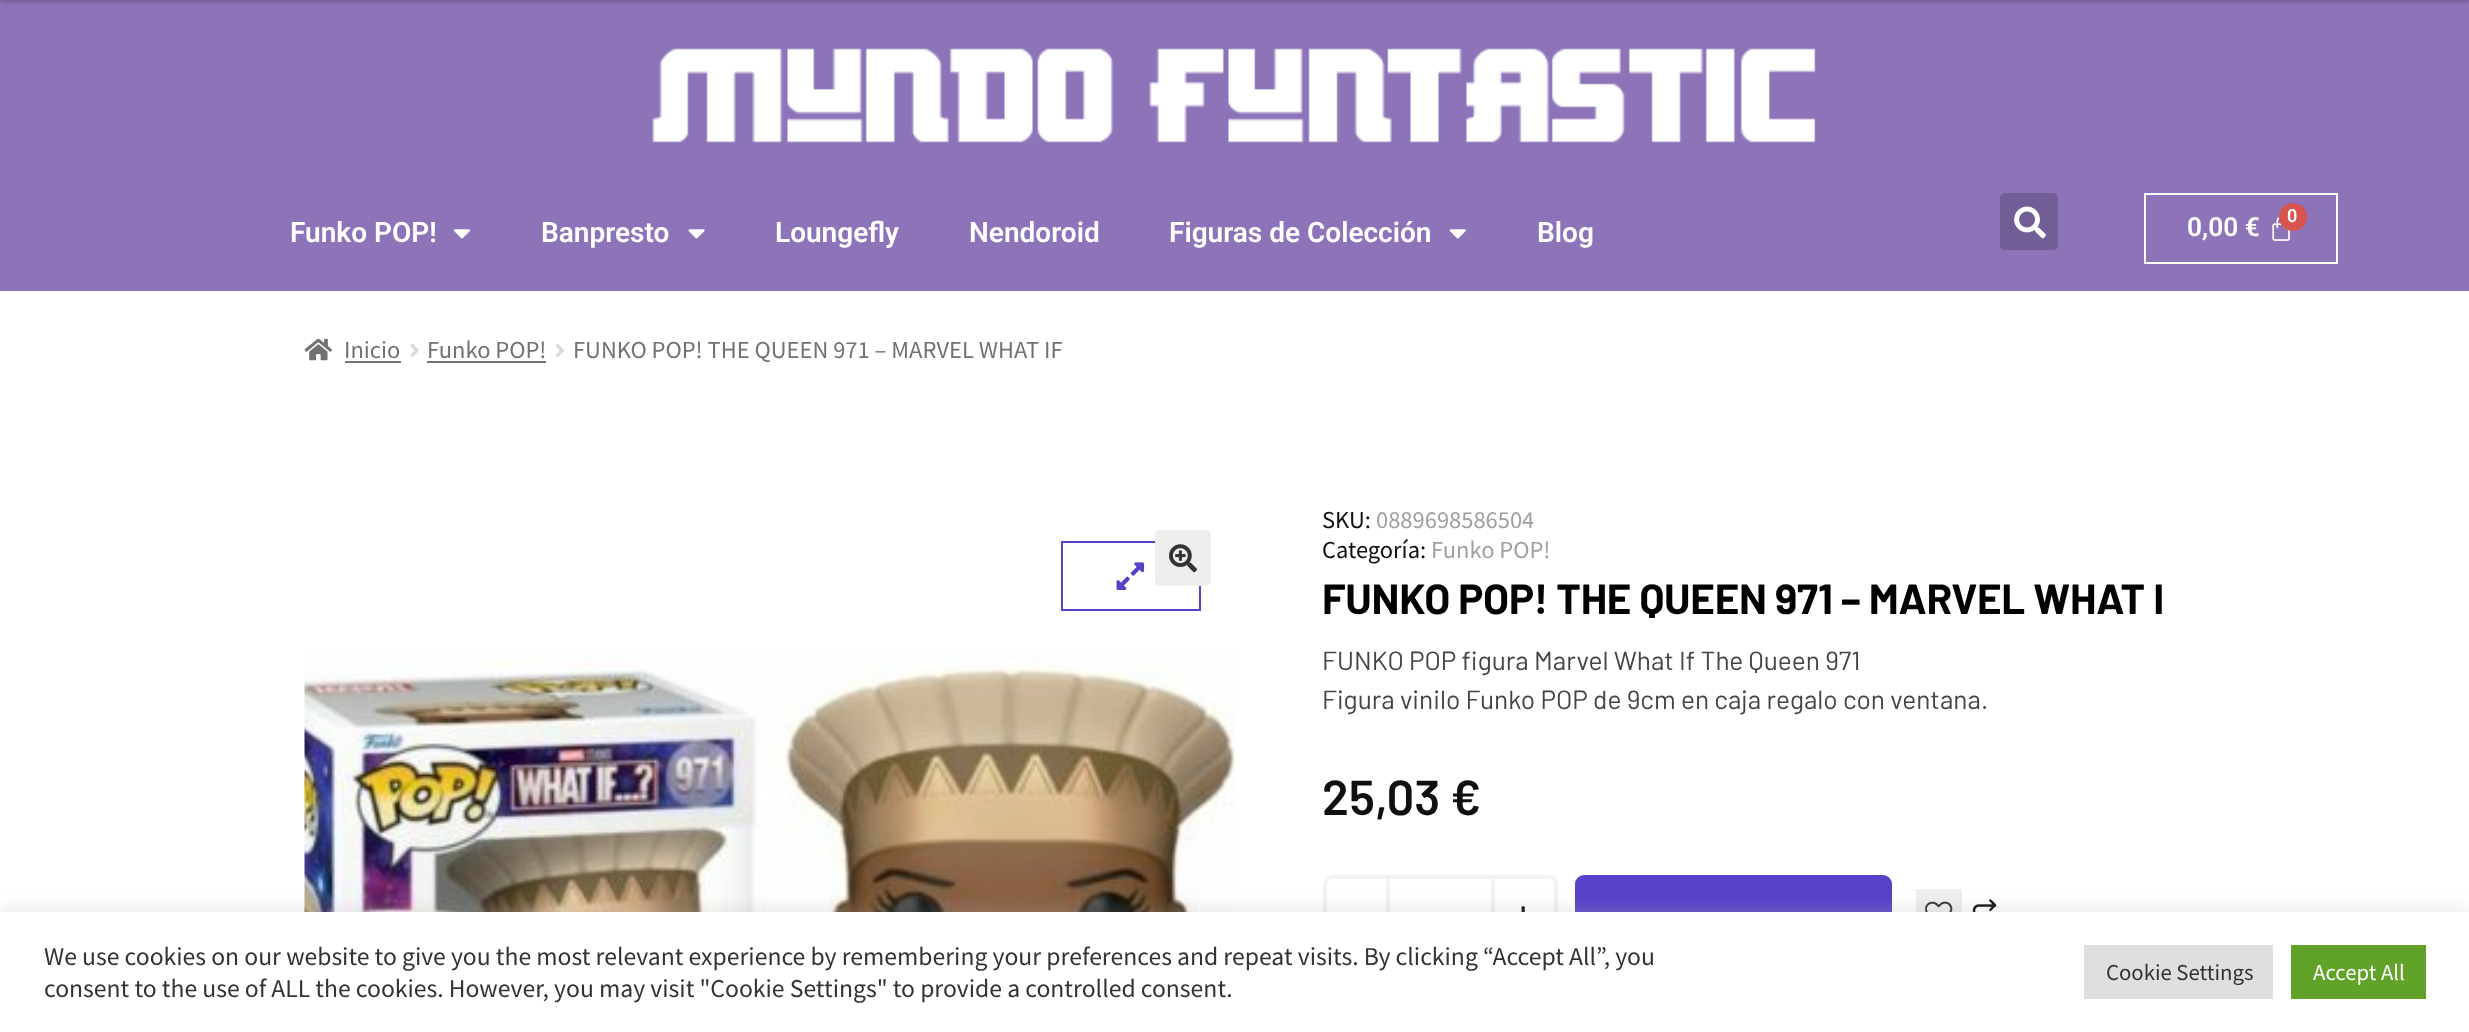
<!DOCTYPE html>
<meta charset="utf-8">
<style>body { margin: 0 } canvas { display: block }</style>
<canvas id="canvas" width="2469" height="1032"></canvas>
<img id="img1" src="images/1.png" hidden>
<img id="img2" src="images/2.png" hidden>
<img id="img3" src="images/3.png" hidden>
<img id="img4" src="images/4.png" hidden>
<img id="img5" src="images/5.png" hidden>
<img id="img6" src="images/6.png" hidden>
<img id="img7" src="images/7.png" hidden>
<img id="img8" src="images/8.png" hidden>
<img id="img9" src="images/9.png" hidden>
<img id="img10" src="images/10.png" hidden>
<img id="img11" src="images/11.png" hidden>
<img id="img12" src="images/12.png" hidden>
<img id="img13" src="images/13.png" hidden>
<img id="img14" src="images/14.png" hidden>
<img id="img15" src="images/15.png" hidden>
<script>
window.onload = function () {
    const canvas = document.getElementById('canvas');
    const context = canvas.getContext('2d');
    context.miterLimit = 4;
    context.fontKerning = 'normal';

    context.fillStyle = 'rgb(255, 255, 255)';
    context.fillRect(0, 0, 2469, 1032);
    context.fillStyle = 'rgb(141, 116, 185)';
    context.fillRect(0, 0, 2469, 291);
    context.fillStyle = 'rgba(0, 0, 0, 0.2)';
    context.filter = 'blur(2px)';
    context.beginPath();
    context.rect(0, -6, 2469, 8);
    context.fill();
    context.filter = 'none';
    context.drawImage(document.getElementById('img1'), 652, 48, 1164, 95);
    context.drawImage(document.getElementById('img2'), 453, 229, 18, 10);
    context.drawImage(document.getElementById('img3'), 688, 229, 17, 10);
    context.drawImage(document.getElementById('img4'), 1449, 229, 17, 10);
    context.fillStyle = 'rgb(114, 94, 151)';
    context.beginPath();
    context.roundRect(2000, 193, 58, 57, 5);
    context.fill();
    context.drawImage(document.getElementById('img5'), 2014, 206, 32, 33);
    context.strokeStyle = 'rgb(255, 255, 255)';
    context.lineWidth = 2;
    context.strokeRect(2145, 194, 192, 69);
    context.drawImage(document.getElementById('img6'), 2272, 216, 18, 25);
    context.fillStyle = 'rgb(217, 83, 79)';
    context.beginPath();
    context.arc(2293, 217, 14, 0, 2 * Math.PI);
    context.fill();
    context.drawImage(document.getElementById('img7'), 304, 338, 28, 23);
    context.fillStyle = 'rgb(114, 114, 114)';
    context.fillRect(345, 361, 56, 2);
    context.drawImage(document.getElementById('img8'), 410, 343, 9, 15);
    context.fillRect(427, 361, 119, 2);
    context.drawImage(document.getElementById('img9'), 555, 343, 10, 15);
    context.strokeStyle = 'rgb(86, 66, 199)';
    context.strokeRect(1062, 542, 138, 68);
    context.fillStyle = 'rgb(238, 238, 238)';
    context.beginPath();
    context.roundRect(1155, 530, 56, 56, 5);
    context.fill();
    context.drawImage(document.getElementById('img10'), 1169, 544, 28, 29);
    context.drawImage(document.getElementById('img11'), 304, 654, 932, 258);
    context.drawImage(document.getElementById('img12'), 1116, 562, 29, 28);
    context.beginPath();
    context.roundRect(1325, 877, 63, 73, [7, 0, 0, 7]);
    context.strokeStyle = 'rgb(242, 242, 242)';
    context.lineWidth = 4;
    context.stroke();
    context.fillStyle = 'rgb(242, 242, 242)';
    context.fillRect(1390, 875, 101, 4);
    context.beginPath();
    context.roundRect(1493, 877, 63, 73, [0, 7, 7, 0]);
    context.stroke();
    context.drawImage(document.getElementById('img13'), 1521, 906, 4, 6);
    context.fillStyle = 'rgb(86, 66, 199)';
    context.beginPath();
    context.roundRect(1577, 877, 313, 75, 7);
    context.fill();
    context.strokeStyle = 'rgb(86, 66, 199)';
    context.stroke();
    context.fillStyle = 'rgb(238, 238, 238)';
    context.fillRect(1916, 889, 46, 23);
    context.drawImage(document.getElementById('img14'), 1925, 901, 28, 11);
    context.drawImage(document.getElementById('img15'), 1972, 899, 25, 13);
    context.fillStyle = 'rgba(172, 171, 171, 0.3)';
    context.filter = 'blur(9px)';
    context.beginPath();
    context.rect(0, 910, 2469, 121);
    context.fill();
    context.filter = 'none';
    context.fillStyle = 'rgb(255, 255, 255)';
    context.fillRect(0, 912, 2469, 120);
    context.fillStyle = 'rgb(222, 223, 224)';
    context.fillRect(2084, 945, 189, 54);
    context.fillStyle = 'rgb(97, 162, 41)';
    context.fillRect(2291, 945, 135, 54);
    context.font = '600 28px Roboto';
    context.fillStyle = 'rgb(255, 255, 255)';
    context.fillText('Funko POP!', 290, 242);
    context.fillText('Banpresto', 541, 242);
    context.fillText('Loungefly', 775, 242);
    context.fillText('Nendoroid', 969, 242);
    context.fillText('Figuras de Colección', 1169, 242);
    context.fillText('Blog', 1537, 242);
    context.font = '600 26.25px Roboto';
    context.fillText('0,00 €', 2187, 236);
    context.font = '600 18px Roboto';
    context.fillText('0', 2287, 222);
    context.font = '24.5px Source Sans Pro';
    context.fillStyle = 'rgb(114, 114, 114)';
    context.fillText('Inicio', 344, 358);
    context.fillText('Funko POP!', 427, 358);
    context.fillText('FUNKO POP! THE QUEEN 971 – MARVEL WHAT IF', 573, 358);
    context.fillStyle = 'rgb(16, 16, 16)';
    context.fillText('SKU:', 1322, 528);
    context.fillStyle = 'rgb(160, 160, 160)';
    context.fillText('0889698586504', 1376, 528);
    context.fillStyle = 'rgb(16, 16, 16)';
    context.fillText('Categoría:', 1322, 558);
    context.fillStyle = 'rgb(160, 160, 160)';
    context.fillText('Funko POP!', 1431, 558);
    context.letterSpacing = '-0.2px';
    context.font = 'bold 42px Barlow';
    context.fillStyle = 'rgb(0, 0, 0)';
    context.fillText('FUNKO POP! THE QUEEN 971 – MARVEL WHAT I', 1322, 614);
    context.letterSpacing = '0px';
    context.font = '26.25px Barlow';
    context.fillStyle = 'rgb(68, 68, 68)';
    context.fillText('FUNKO POP figura Marvel What If The Queen 971', 1322, 670);
    context.fillText('Figura vinilo Funko POP de 9cm en caja regalo con ventana.', 1322, 709);
    context.font = '600 49px Barlow';
    context.fillStyle = 'rgb(16, 16, 16)';
    context.fillText('25,03 €', 1322, 815);
    context.font = '25.67px Source Sans Pro';
    context.fillStyle = 'rgb(51, 51, 51)';
    context.fillText('We use cookies on our website to give you the most relevant experience by remembering your preferences and repeat visits. By clicking “Accept All”, you', 44, 965);
    context.fillText('consent to the use of ALL the cookies. However, you may visit "Cookie Settings" to provide a controlled consent.', 44, 997);
    context.font = '22.75px Source Sans Pro';
    context.fillText('Cookie Settings', 2106, 980);
    context.fillStyle = 'rgb(255, 255, 255)';
    context.fillText('Accept All', 2313, 980);
};
</script>
